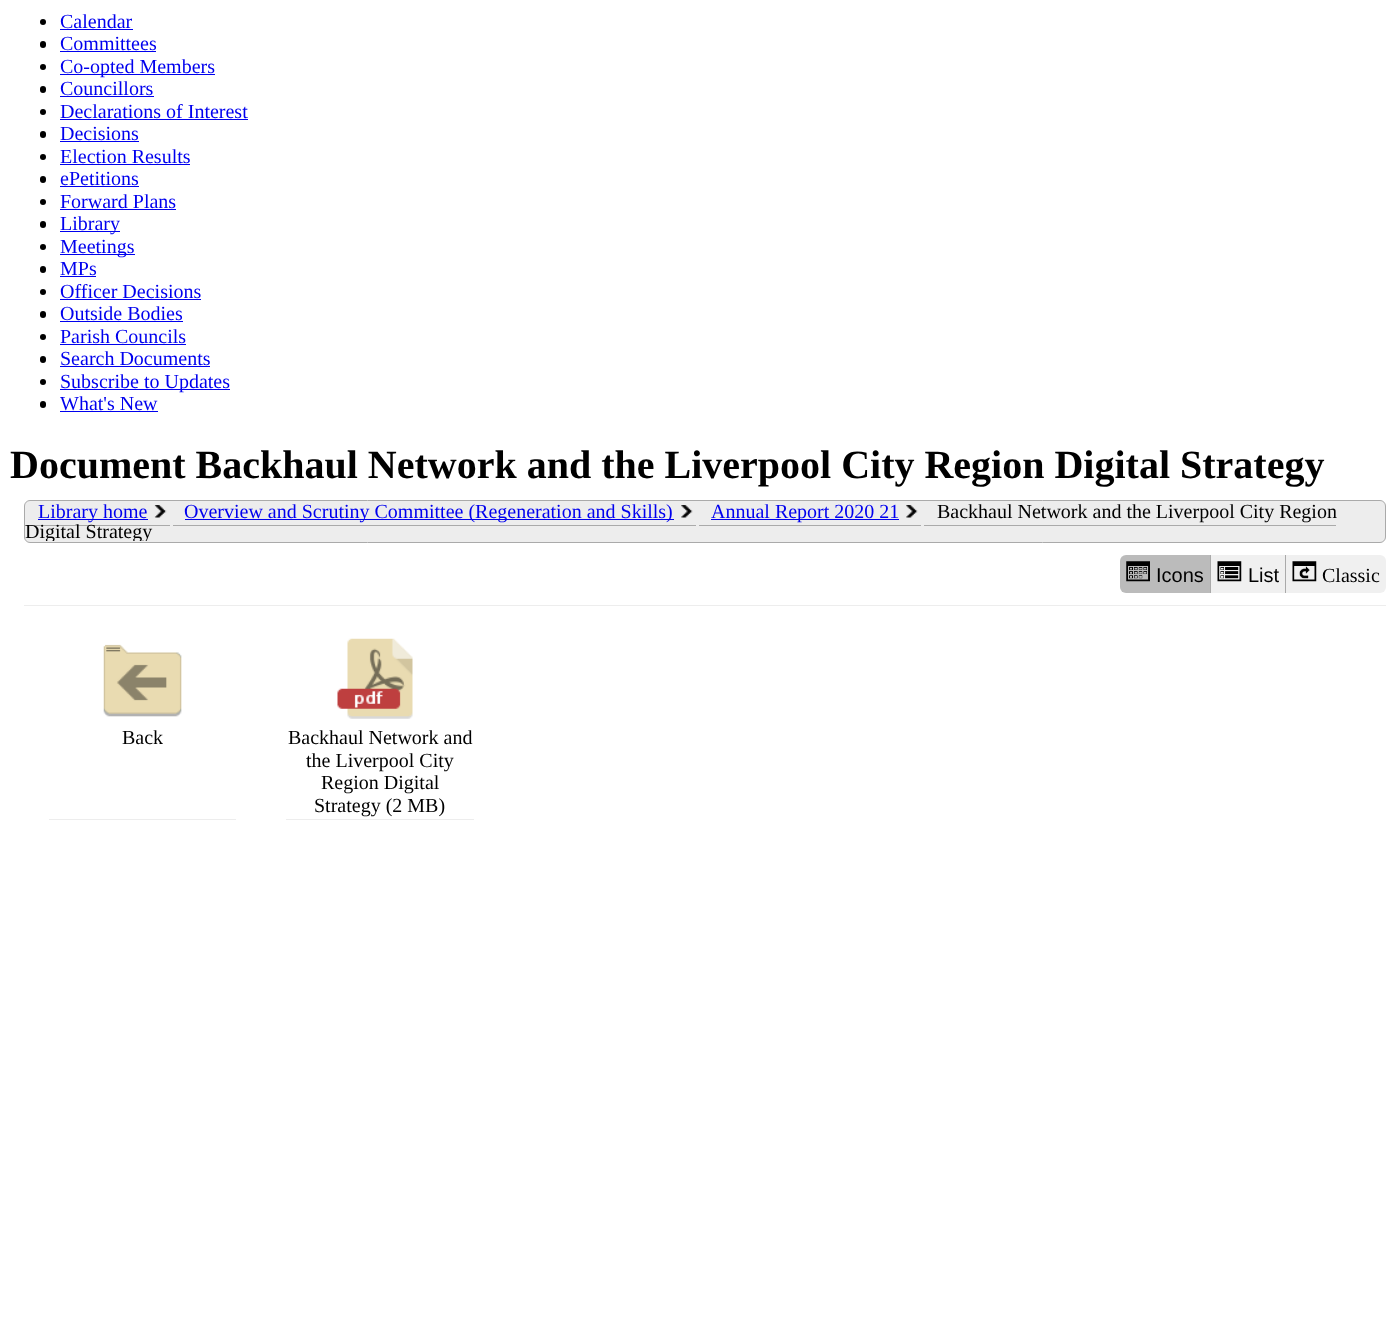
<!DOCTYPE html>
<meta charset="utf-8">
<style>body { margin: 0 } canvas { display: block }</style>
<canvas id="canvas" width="1396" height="1337"></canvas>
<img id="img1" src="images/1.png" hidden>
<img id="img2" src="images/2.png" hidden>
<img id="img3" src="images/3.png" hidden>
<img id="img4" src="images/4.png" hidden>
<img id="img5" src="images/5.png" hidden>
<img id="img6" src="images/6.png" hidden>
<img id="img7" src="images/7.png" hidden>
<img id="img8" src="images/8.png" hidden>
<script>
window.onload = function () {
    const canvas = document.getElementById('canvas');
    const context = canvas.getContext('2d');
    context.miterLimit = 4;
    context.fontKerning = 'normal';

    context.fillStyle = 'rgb(255, 255, 255)';
    context.fillRect(0, 0, 1396, 1337);
    context.fillStyle = 'rgb(0, 0, 0)';
    context.beginPath();
    context.arc(43, 22, 3, 0, 2 * Math.PI);
    context.fill();
    context.fillStyle = 'rgb(0, 0, 238)';
    context.fillRect(60, 29, 73, 1);
    context.fillStyle = 'rgb(0, 0, 0)';
    context.beginPath();
    context.roundRect(40, 41, 6, 7, 3);
    context.fill();
    context.fillStyle = 'rgb(0, 0, 238)';
    context.fillRect(60, 51, 96, 1);
    context.fillStyle = 'rgb(0, 0, 0)';
    context.beginPath();
    context.arc(43, 67, 3, 0, 2 * Math.PI);
    context.fill();
    context.fillStyle = 'rgb(0, 0, 238)';
    context.fillRect(60, 74, 155, 1);
    context.fillStyle = 'rgb(0, 0, 0)';
    context.beginPath();
    context.roundRect(40, 86, 6, 7, 3);
    context.fill();
    context.fillStyle = 'rgb(0, 0, 238)';
    context.fillRect(60, 96, 94, 1);
    context.fillStyle = 'rgb(0, 0, 0)';
    context.beginPath();
    context.arc(43, 112, 3, 0, 2 * Math.PI);
    context.fill();
    context.fillStyle = 'rgb(0, 0, 238)';
    context.fillRect(60, 119, 188, 1);
    context.fillStyle = 'rgb(0, 0, 0)';
    context.beginPath();
    context.roundRect(40, 131, 6, 7, 3);
    context.fill();
    context.fillStyle = 'rgb(0, 0, 238)';
    context.fillRect(60, 141, 79, 1);
    context.fillStyle = 'rgb(0, 0, 0)';
    context.beginPath();
    context.arc(43, 157, 3, 0, 2 * Math.PI);
    context.fill();
    context.fillStyle = 'rgb(0, 0, 238)';
    context.fillRect(60, 164, 130, 1);
    context.fillStyle = 'rgb(0, 0, 0)';
    context.beginPath();
    context.roundRect(40, 176, 6, 7, 3);
    context.fill();
    context.fillStyle = 'rgb(0, 0, 238)';
    context.fillRect(60, 186, 79, 1);
    context.fillStyle = 'rgb(0, 0, 0)';
    context.beginPath();
    context.arc(43, 202, 3, 0, 2 * Math.PI);
    context.fill();
    context.fillStyle = 'rgb(0, 0, 238)';
    context.fillRect(60, 209, 116, 1);
    context.fillStyle = 'rgb(0, 0, 0)';
    context.beginPath();
    context.roundRect(40, 221, 6, 7, 3);
    context.fill();
    context.fillStyle = 'rgb(0, 0, 238)';
    context.fillRect(60, 231, 60, 1);
    context.fillStyle = 'rgb(0, 0, 0)';
    context.beginPath();
    context.arc(43, 247, 3, 0, 2 * Math.PI);
    context.fill();
    context.fillStyle = 'rgb(0, 0, 238)';
    context.fillRect(60, 254, 75, 1);
    context.fillStyle = 'rgb(0, 0, 0)';
    context.beginPath();
    context.roundRect(40, 266, 6, 7, 3);
    context.fill();
    context.fillStyle = 'rgb(0, 0, 238)';
    context.fillRect(60, 276, 36, 1);
    context.fillStyle = 'rgb(0, 0, 0)';
    context.beginPath();
    context.arc(43, 292, 3, 0, 2 * Math.PI);
    context.fill();
    context.fillStyle = 'rgb(0, 0, 238)';
    context.fillRect(60, 299, 141, 1);
    context.fillStyle = 'rgb(0, 0, 0)';
    context.beginPath();
    context.roundRect(40, 311, 6, 7, 3);
    context.fill();
    context.fillStyle = 'rgb(0, 0, 238)';
    context.fillRect(60, 321, 123, 1);
    context.fillStyle = 'rgb(0, 0, 0)';
    context.beginPath();
    context.arc(43, 337, 3, 0, 2 * Math.PI);
    context.fill();
    context.fillStyle = 'rgb(0, 0, 238)';
    context.fillRect(60, 344, 126, 1);
    context.fillStyle = 'rgb(0, 0, 0)';
    context.beginPath();
    context.roundRect(40, 356, 6, 7, 3);
    context.fill();
    context.fillStyle = 'rgb(0, 0, 238)';
    context.fillRect(60, 366, 150, 1);
    context.fillStyle = 'rgb(0, 0, 0)';
    context.beginPath();
    context.arc(43, 382, 3, 0, 2 * Math.PI);
    context.fill();
    context.fillStyle = 'rgb(0, 0, 238)';
    context.fillRect(60, 389, 170, 1);
    context.fillStyle = 'rgb(0, 0, 0)';
    context.beginPath();
    context.roundRect(40, 401, 6, 7, 3);
    context.fill();
    context.fillStyle = 'rgb(0, 0, 238)';
    context.fillRect(60, 411, 98, 1);
    context.fillStyle = 'rgb(237, 237, 237)';
    context.beginPath();
    context.roundRect(24.5, 500.5, 1361, 42, 5.5);
    context.fill();
    context.strokeStyle = 'rgb(170, 170, 170)';
    context.stroke();
    context.fillStyle = 'rgb(170, 170, 170)';
    context.fillRect(25, 525, 145, 1);
    context.fillStyle = 'rgb(0, 0, 238)';
    context.fillRect(38, 519, 110, 1);
    context.drawImage(document.getElementById('img1'), 154, 505, 13, 13);
    context.fillStyle = 'rgb(170, 170, 170)';
    context.fillRect(173, 525, 523, 1);
    context.fillStyle = 'rgb(0, 0, 238)';
    context.fillRect(185, 519, 489, 1);
    context.drawImage(document.getElementById('img2'), 681, 505, 12, 13);
    context.fillStyle = 'rgb(170, 170, 170)';
    context.fillRect(699, 525, 222, 1);
    context.fillStyle = 'rgb(0, 0, 238)';
    context.fillRect(711, 519, 188, 1);
    context.drawImage(document.getElementById('img3'), 906, 505, 12, 13);
    context.fillStyle = 'rgb(170, 170, 170)';
    context.fillRect(924, 525, 412, 1);
    context.fillStyle = 'rgb(187, 187, 187)';
    context.beginPath();
    context.roundRect(1120, 555, 91, 38, [6, 0, 0, 6]);
    context.fill();
    context.fillStyle = 'rgb(170, 170, 170)';
    context.fillRect(1210, 555, 1, 38);
    context.drawImage(document.getElementById('img4'), 1126, 561, 24, 21);
    context.fillStyle = 'rgb(240, 240, 240)';
    context.fillRect(1211, 555, 74, 38);
    context.drawImage(document.getElementById('img5'), 1217, 561, 25, 21);
    context.beginPath();
    context.roundRect(1285, 555, 101, 38, [0, 6, 6, 0]);
    context.fill();
    context.fillStyle = 'rgb(170, 170, 170)';
    context.fillRect(1285, 555, 1, 38);
    context.drawImage(document.getElementById('img6'), 1292, 561, 25, 21);
    context.fillStyle = 'rgb(237, 237, 237)';
    context.fillRect(24, 605, 1362, 1);
    context.fillRect(49, 819, 187, 1);
    context.drawImage(document.getElementById('img7'), 103, 644, 79, 73);
    context.fillRect(286, 819, 188, 1);
    context.drawImage(document.getElementById('img8'), 337, 638, 76, 81);
    context.font = '20px Liberation Serif';
    context.fillStyle = 'rgb(0, 0, 238)';
    context.fillText('Calendar', 60, 28);
    context.fillText('Committees', 60, 50);
    context.fillText('Co-opted Members', 60, 73);
    context.fillText('Councillors', 60, 95);
    context.fillText('Declarations of Interest', 60, 118);
    context.fillText('Decisions', 60, 140);
    context.fillText('Election Results', 60, 163);
    context.fillText('ePetitions', 60, 185);
    context.fillText('Forward Plans', 60, 208);
    context.fillText('Library', 60, 230);
    context.fillText('Meetings', 60, 253);
    context.fillText('MPs', 60, 275);
    context.fillText('Officer Decisions', 60, 298);
    context.fillText('Outside Bodies', 60, 320);
    context.fillText('Parish Councils', 60, 343);
    context.fillText('Search Documents', 60, 365);
    context.fillText('Subscribe to Updates', 60, 388);
    context.fillText('What\'s New', 60, 410);
    context.font = 'bold 40px Liberation Serif';
    context.fillStyle = 'rgb(0, 0, 0)';
    context.fillText('Document Backhaul Network and the Liverpool City Region Digital Strategy', 10, 478);
    context.font = '20px Liberation Serif';
    context.fillStyle = 'rgb(0, 0, 238)';
    context.fillText('Library home', 38, 518);
    context.fillText('Overview and Scrutiny Committee (Regeneration and Skills)', 184, 518);
    context.fillText('Annual Report 2020 21', 711, 518);
    context.fillStyle = 'rgb(0, 0, 0)';
    context.fillText('Backhaul Network and the Liverpool City Region', 937, 518);
    context.save();
    context.beginPath();
    context.roundRect(25, 501, 1360, 40, 5);
    context.clip();
    context.fillText('Digital Strategy', 25, 538);
    context.restore();
    context.font = '20px Liberation Sans';
    context.fillText('Icons', 1156, 582);
    context.fillText('List', 1248, 582);
    context.font = '20px Liberation Serif';
    context.fillText('Classic', 1322, 582);
    context.fillText('Back', 122, 744);
    context.fillText('Backhaul Network and', 288, 744);
    context.fillText('the Liverpool City', 306, 767);
    context.fillText('Region Digital', 321, 789);
    context.fillText('Strategy (2 MB)', 314, 812);
};
</script>
